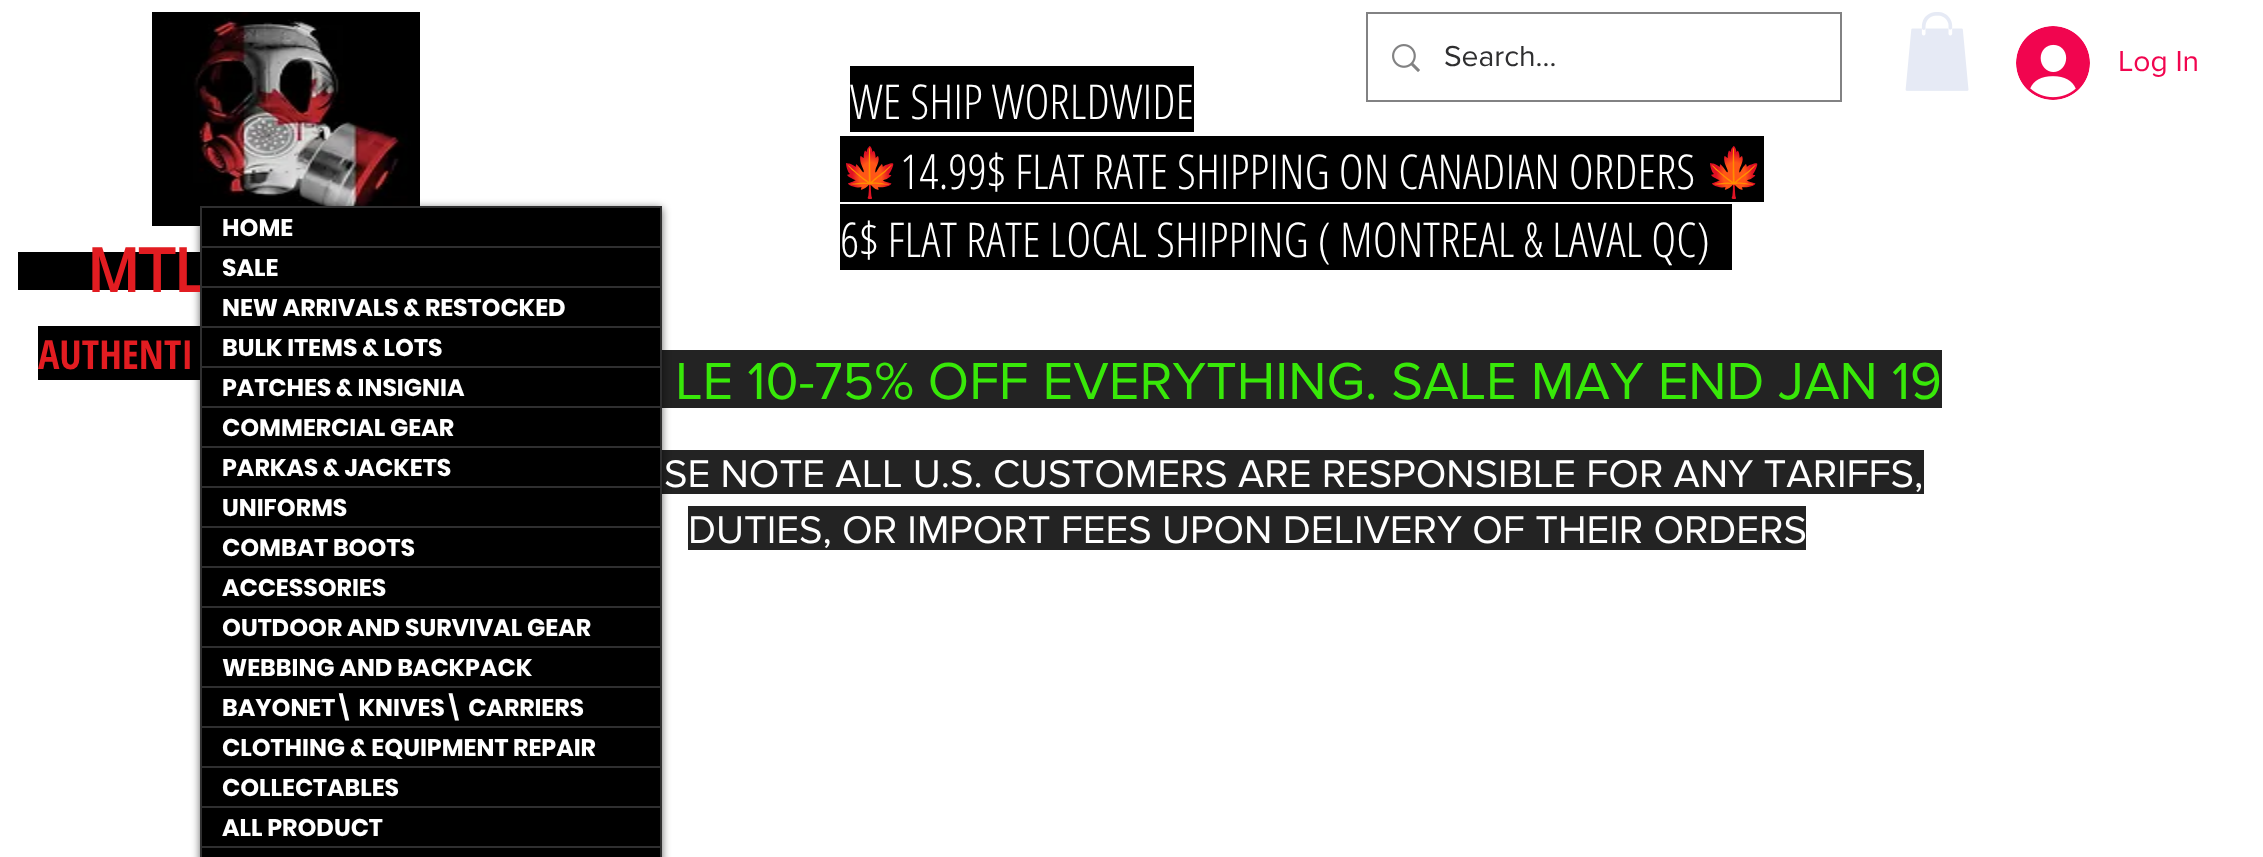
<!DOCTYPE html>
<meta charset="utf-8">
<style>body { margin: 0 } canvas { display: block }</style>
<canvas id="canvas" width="2263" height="857"></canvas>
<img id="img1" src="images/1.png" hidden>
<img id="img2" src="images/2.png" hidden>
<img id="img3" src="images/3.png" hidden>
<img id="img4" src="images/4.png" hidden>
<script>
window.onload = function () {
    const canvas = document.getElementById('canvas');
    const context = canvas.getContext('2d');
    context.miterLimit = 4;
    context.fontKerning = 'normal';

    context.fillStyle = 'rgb(255, 255, 255)';
    context.fillRect(0, 0, 2263, 857);
    context.drawImage(document.getElementById('img1'), 152, 12, 268, 214);
    context.strokeStyle = 'rgb(130, 130, 131)';
    context.lineWidth = 2;
    context.strokeRect(1367, 13, 474, 88);
    context.drawImage(document.getElementById('img2'), 1392, 44, 28, 28);
    context.drawImage(document.getElementById('img3'), 1905, 12, 64, 79);
    context.drawImage(document.getElementById('img4'), 2016, 26, 74, 74);
    context.fillStyle = 'rgb(0, 0, 0)';
    context.fillRect(850, 66, 344, 66);
    context.fillRect(840, 136, 924, 66);
    context.fillRect(18, 252, 182, 38);
    context.fillRect(840, 204, 892, 66);
    context.fillRect(38, 326, 162, 54);
    context.fillStyle = 'rgb(35, 35, 35)';
    context.fillRect(662, 350, 1280, 58);
    context.fillRect(662, 450, 1262, 44);
    context.fillRect(688, 506, 1118, 44);
    context.fillStyle = 'rgba(0, 0, 0, 0.6)';
    context.filter = 'blur(4px)';
    context.beginPath();
    context.rect(200, 208, 462, 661);
    context.fill();
    context.filter = 'none';
    context.font = '30px "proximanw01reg"';
    context.fillStyle = 'rgb(47, 47, 48)';
    context.fillText('Search...', 1444, 66);
    context.fillStyle = 'rgb(241, 5, 79)';
    context.fillText('Log In', 2118, 71);
    context.font = '300 48px Open Sans Condensed';
    context.fillStyle = 'rgb(255, 255, 255)';
    context.fillText('WE SHIP WORLDWIDE', 850, 119);
    context.font = '48px Noto Color Emoji';
    context.fillText('🍁', 840, 189);
    context.font = '300 48px Open Sans Condensed';
    context.fillText('14.99$ FLAT RATE SHIPPING ON CANADIAN ORDERS', 900, 189);
    context.font = '48px Noto Color Emoji';
    context.fillText('🍁', 1704, 189);
    context.font = 'bold 60px helvetica';
    context.fillStyle = 'rgb(226, 28, 33)';
    context.fillText('MTL', 88, 292);
    context.font = '300 48px Open Sans Condensed';
    context.fillStyle = 'rgb(255, 255, 255)';
    context.fillText('6$ FLAT RATE LOCAL SHIPPING ( MONTREAL & LAVAL QC)', 840, 257);
    context.font = 'bold 40px Open Sans Condensed';
    context.fillStyle = 'rgb(226, 28, 33)';
    context.fillText('AUTHENTI', 38, 369);
    context.font = '54px "proximanw01reg"';
    context.fillStyle = 'rgb(56, 232, 9)';
    context.fillText('LE 10-75% OFF EVERYTHING. SALE MAY END JAN 19', 675, 399);
    context.font = '40px "proximanw01reg"';
    context.fillStyle = 'rgb(255, 255, 255)';
    context.fillText('SE NOTE ALL U.S. CUSTOMERS ARE RESPONSIBLE FOR ANY TARIFFS,', 664, 487);
    context.fillText('DUTIES, OR IMPORT FEES UPON DELIVERY OF THEIR ORDERS', 688, 543);
    context.strokeStyle = 'rgb(47, 47, 48)';
    context.strokeRect(201, 207, 460, 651);
    context.fillStyle = 'rgb(47, 47, 48)';
    context.fillRect(202, 246, 458, 2);
    context.fillStyle = 'rgb(0, 0, 0)';
    context.fillRect(202, 208, 458, 38);
    context.font = 'bold 24px Poppins';
    context.fillStyle = 'rgb(255, 255, 255)';
    context.fillText('HOME', 222, 236);
    context.fillStyle = 'rgb(47, 47, 48)';
    context.fillRect(202, 286, 458, 2);
    context.fillStyle = 'rgb(0, 0, 0)';
    context.fillRect(202, 248, 458, 38);
    context.fillStyle = 'rgb(255, 255, 255)';
    context.fillText('SALE', 222, 276);
    context.fillStyle = 'rgb(47, 47, 48)';
    context.fillRect(202, 326, 458, 2);
    context.fillStyle = 'rgb(0, 0, 0)';
    context.fillRect(202, 288, 458, 38);
    context.fillStyle = 'rgb(255, 255, 255)';
    context.fillText('NEW ARRIVALS & RESTOCKED', 222, 316);
    context.fillStyle = 'rgb(47, 47, 48)';
    context.fillRect(202, 366, 458, 2);
    context.fillStyle = 'rgb(0, 0, 0)';
    context.fillRect(202, 328, 458, 38);
    context.fillStyle = 'rgb(255, 255, 255)';
    context.fillText('BULK ITEMS & LOTS', 222, 356);
    context.fillStyle = 'rgb(47, 47, 48)';
    context.fillRect(202, 406, 458, 2);
    context.fillStyle = 'rgb(0, 0, 0)';
    context.fillRect(202, 368, 458, 38);
    context.fillStyle = 'rgb(255, 255, 255)';
    context.fillText('PATCHES & INSIGNIA', 222, 396);
    context.fillStyle = 'rgb(47, 47, 48)';
    context.fillRect(202, 446, 458, 2);
    context.fillStyle = 'rgb(0, 0, 0)';
    context.fillRect(202, 408, 458, 38);
    context.fillStyle = 'rgb(255, 255, 255)';
    context.fillText('COMMERCIAL GEAR', 222, 436);
    context.fillStyle = 'rgb(47, 47, 48)';
    context.fillRect(202, 486, 458, 2);
    context.fillStyle = 'rgb(0, 0, 0)';
    context.fillRect(202, 448, 458, 38);
    context.fillStyle = 'rgb(255, 255, 255)';
    context.fillText('PARKAS & JACKETS', 222, 476);
    context.fillStyle = 'rgb(47, 47, 48)';
    context.fillRect(202, 526, 458, 2);
    context.fillStyle = 'rgb(0, 0, 0)';
    context.fillRect(202, 488, 458, 38);
    context.fillStyle = 'rgb(255, 255, 255)';
    context.fillText('UNIFORMS', 222, 516);
    context.fillStyle = 'rgb(47, 47, 48)';
    context.fillRect(202, 566, 458, 2);
    context.fillStyle = 'rgb(0, 0, 0)';
    context.fillRect(202, 528, 458, 38);
    context.fillStyle = 'rgb(255, 255, 255)';
    context.fillText('COMBAT BOOTS', 222, 556);
    context.fillStyle = 'rgb(47, 47, 48)';
    context.fillRect(202, 606, 458, 2);
    context.fillStyle = 'rgb(0, 0, 0)';
    context.fillRect(202, 568, 458, 38);
    context.fillStyle = 'rgb(255, 255, 255)';
    context.fillText('ACCESSORIES', 222, 596);
    context.fillStyle = 'rgb(47, 47, 48)';
    context.fillRect(202, 646, 458, 2);
    context.fillStyle = 'rgb(0, 0, 0)';
    context.fillRect(202, 608, 458, 38);
    context.fillStyle = 'rgb(255, 255, 255)';
    context.fillText('OUTDOOR AND SURVIVAL GEAR', 222, 636);
    context.fillStyle = 'rgb(47, 47, 48)';
    context.fillRect(202, 686, 458, 2);
    context.fillStyle = 'rgb(0, 0, 0)';
    context.fillRect(202, 648, 458, 38);
    context.fillStyle = 'rgb(255, 255, 255)';
    context.fillText('WEBBING AND BACKPACK', 222, 676);
    context.fillStyle = 'rgb(47, 47, 48)';
    context.fillRect(202, 726, 458, 2);
    context.fillStyle = 'rgb(0, 0, 0)';
    context.fillRect(202, 688, 458, 38);
    context.fillStyle = 'rgb(255, 255, 255)';
    context.fillText('BAYONET\\ KNIVES\\ CARRIERS', 222, 716);
    context.fillStyle = 'rgb(47, 47, 48)';
    context.fillRect(202, 766, 458, 2);
    context.fillStyle = 'rgb(0, 0, 0)';
    context.fillRect(202, 728, 458, 38);
    context.fillStyle = 'rgb(255, 255, 255)';
    context.fillText('CLOTHING & EQUIPMENT REPAIR', 222, 756);
    context.fillStyle = 'rgb(47, 47, 48)';
    context.fillRect(202, 806, 458, 2);
    context.fillStyle = 'rgb(0, 0, 0)';
    context.fillRect(202, 768, 458, 38);
    context.fillStyle = 'rgb(255, 255, 255)';
    context.fillText('COLLECTABLES', 222, 796);
    context.fillStyle = 'rgb(47, 47, 48)';
    context.fillRect(202, 846, 458, 2);
    context.fillStyle = 'rgb(0, 0, 0)';
    context.fillRect(202, 808, 458, 38);
    context.fillStyle = 'rgb(255, 255, 255)';
    context.fillText('ALL PRODUCT', 222, 836);
    context.fillStyle = 'rgb(0, 0, 0)';
    context.fillRect(202, 848, 458, 9);
};
</script>
